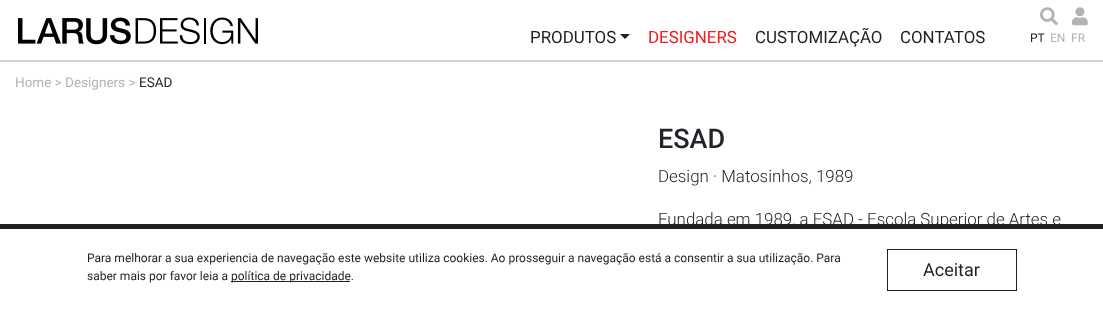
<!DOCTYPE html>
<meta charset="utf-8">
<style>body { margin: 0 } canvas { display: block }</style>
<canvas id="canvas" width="1103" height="311"></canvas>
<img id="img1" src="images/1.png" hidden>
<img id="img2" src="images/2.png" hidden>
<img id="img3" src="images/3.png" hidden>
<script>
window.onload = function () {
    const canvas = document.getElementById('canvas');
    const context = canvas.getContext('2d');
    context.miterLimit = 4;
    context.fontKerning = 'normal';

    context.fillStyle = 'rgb(255, 255, 255)';
    context.fillRect(0, 0, 1103, 311);
    context.fillStyle = 'rgb(209, 211, 212)';
    context.fillRect(0, 60, 1103, 2);
    context.drawImage(document.getElementById('img1'), 18, 17, 240, 28);
    context.drawImage(document.getElementById('img2'), 1040, 7, 18, 19);
    context.drawImage(document.getElementById('img3'), 1072, 7, 16, 19);
    context.fillStyle = 'rgb(35, 31, 32)';
    context.beginPath();
    context.moveTo(620, 34);
    context.lineTo(630, 34);
    context.lineTo(625, 39);
    context.closePath();
    context.fill();
    context.fillRect(231, 281, 119, 1);
    context.strokeStyle = 'rgb(35, 31, 32)';
    context.strokeRect(887.5, 249.5, 129, 41);
    context.font = '16.9px Roboto';
    context.fillText('PRODUTOS', 530, 43);
    context.fillStyle = 'rgb(237, 28, 36)';
    context.fillText('DESIGNERS', 648, 43);
    context.fillStyle = 'rgb(35, 31, 32)';
    context.fillText('CUSTOMIZAÇÃO', 755, 43);
    context.fillText('CONTATOS', 900, 43);
    context.font = '12px Roboto';
    context.fillText('PT', 1030, 42);
    context.fillStyle = 'rgb(177, 179, 181)';
    context.fillText('EN', 1050, 42);
    context.fillText('FR', 1071, 42);
    context.font = '13.5px Roboto';
    context.fillText('Home > Designers >', 15, 87);
    context.fillStyle = 'rgb(33, 37, 41)';
    context.fillText('ESAD', 139, 87);
    context.font = '500 27px Roboto';
    context.fillText('ESAD', 658, 148);
    context.font = '300 16.9px Roboto';
    context.fillText('Design · Matosinhos, 1989', 658, 182);
    context.fillText('Fundada em 1989, a ESAD - Escola Superior de Artes e', 658, 225);
    context.fillStyle = 'rgb(35, 31, 32)';
    context.fillRect(0, 224, 1103, 5);
    context.font = '12px Roboto';
    context.fillText('Para melhorar a sua experiencia de navegação este website utiliza cookies. Ao prosseguir a navegação está a consentir a sua utilização. Para', 87, 262);
    context.fillText('saber mais por favor leia a', 87, 280);
    context.fillText('política de privacidade.', 231, 280);
    context.font = '18px Roboto';
    context.fillText('Aceitar', 923, 276);
};
</script>
